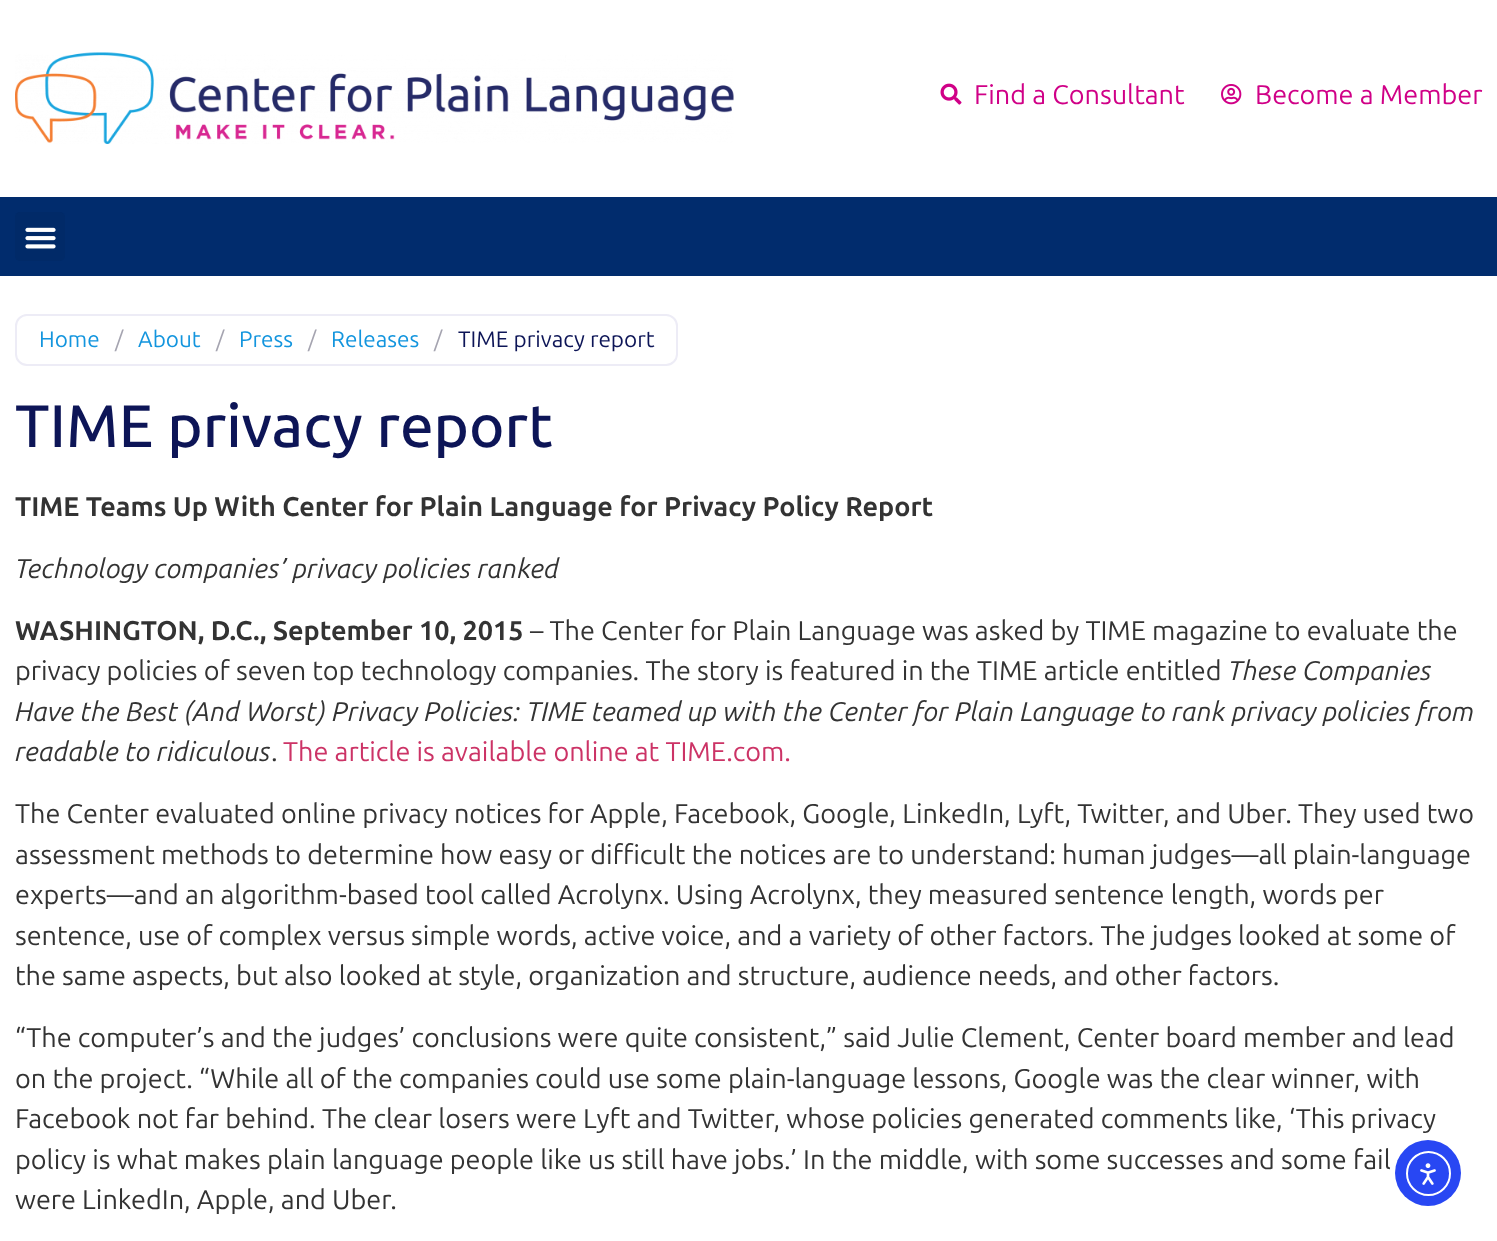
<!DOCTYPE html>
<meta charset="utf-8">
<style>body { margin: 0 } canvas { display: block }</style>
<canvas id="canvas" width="1497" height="1241"></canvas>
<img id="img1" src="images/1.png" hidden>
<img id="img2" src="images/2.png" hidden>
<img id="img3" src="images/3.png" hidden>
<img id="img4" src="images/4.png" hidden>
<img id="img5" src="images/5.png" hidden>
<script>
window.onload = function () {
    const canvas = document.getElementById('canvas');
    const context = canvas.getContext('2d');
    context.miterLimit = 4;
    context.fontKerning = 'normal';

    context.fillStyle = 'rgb(255, 255, 255)';
    context.fillRect(0, 0, 1497, 1241);
    context.drawImage(document.getElementById('img1'), 15, 52, 719, 92);
    context.drawImage(document.getElementById('img2'), 940, 83, 22, 22);
    context.drawImage(document.getElementById('img3'), 1221, 84, 21, 21);
    context.fillStyle = 'rgb(1, 44, 109)';
    context.fillRect(0, 197, 1497, 79);
    context.fillStyle = 'rgb(1, 42, 104)';
    context.beginPath();
    context.roundRect(15, 212, 50, 49, 5);
    context.fill();
    context.drawImage(document.getElementById('img4'), 25, 227, 31, 22);
    context.beginPath();
    context.roundRect(16, 315, 661, 50, 11);
    context.strokeStyle = 'rgb(237, 236, 246)';
    context.lineWidth = 2;
    context.stroke();
    context.fillStyle = 'rgb(40, 71, 243)';
    context.beginPath();
    context.arc(1428, 1173, 33, 0, 2 * Math.PI);
    context.fill();
    context.beginPath();
    context.arc(1428.5, 1173.5, 21.5, 0, 2 * Math.PI);
    context.strokeStyle = 'rgb(255, 255, 255)';
    context.stroke();
    context.drawImage(document.getElementById('img5'), 1420, 1163, 16, 22);
    context.font = '27px Ubuntu';
    context.fillStyle = 'rgb(208, 0, 135)';
    context.fillText('Find a Consultant', 974, 104);
    context.fillText('Become a Member', 1255, 104);
    context.font = '22.5px Ubuntu';
    context.fillStyle = 'rgb(19, 149, 222)';
    context.fillText('Home', 39, 347);
    context.fillStyle = 'rgb(165, 164, 176)';
    context.fillText('/', 115, 347);
    context.fillStyle = 'rgb(19, 149, 222)';
    context.fillText('About', 138, 347);
    context.fillStyle = 'rgb(165, 164, 176)';
    context.fillText('/', 216, 347);
    context.fillStyle = 'rgb(19, 149, 222)';
    context.fillText('Press', 239, 347);
    context.fillStyle = 'rgb(165, 164, 176)';
    context.fillText('/', 308, 347);
    context.fillStyle = 'rgb(19, 149, 222)';
    context.fillText('Releases', 331, 347);
    context.fillStyle = 'rgb(165, 164, 176)';
    context.fillText('/', 434, 347);
    context.fillStyle = 'rgb(13, 21, 87)';
    context.fillText('TIME privacy report', 458, 347);
    context.font = '500 60px Ubuntu';
    context.fillText('TIME privacy report', 15, 447);
    context.font = 'bold 27px Ubuntu';
    context.fillStyle = 'rgb(51, 51, 51)';
    context.fillText('TIME Teams Up With Center for Plain Language for Privacy Policy Report', 15, 516);
    context.font = 'italic 27px Ubuntu';
    context.fillText('Technology companies’ privacy policies ranked', 15, 578);
    context.font = 'bold 27px Ubuntu';
    context.fillText('WASHINGTON, D.C., September 10, 2015', 15, 640);
    context.font = '27px Ubuntu';
    context.fillText('– The Center for Plain Language was asked by TIME magazine to evaluate the', 530, 640);
    context.fillText('privacy policies of seven top technology companies. The story is featured in the TIME article entitled', 15, 680);
    context.font = 'italic 27px Ubuntu';
    context.fillText('These Companies', 1228, 680);
    context.fillText('Have the Best (And Worst) Privacy Policies: TIME teamed up with the Center for Plain Language to rank privacy policies from', 15, 721);
    context.fillText('readable to ridiculous', 15, 761);
    context.font = '27px Ubuntu';
    context.fillText('.', 271, 761);
    context.fillStyle = 'rgb(204, 51, 102)';
    context.fillText('The article is available online at TIME.com.', 283, 761);
    context.fillStyle = 'rgb(51, 51, 51)';
    context.fillText('The Center evaluated online privacy notices for Apple, Facebook, Google, LinkedIn, Lyft, Twitter, and Uber. They used two', 15, 823);
    context.fillText('assessment methods to determine how easy or difficult the notices are to understand: human judges—all plain-language', 15, 864);
    context.fillText('experts—and an algorithm-based tool called Acrolynx. Using Acrolynx, they measured sentence length, words per', 15, 904);
    context.fillText('sentence, use of complex versus simple words, active voice, and a variety of other factors. The judges looked at some of', 15, 945);
    context.fillText('the same aspects, but also looked at style, organization and structure, audience needs, and other factors.', 15, 985);
    context.fillText('“The computer’s and the judges’ conclusions were quite consistent,” said Julie Clement, Center board member and lead', 15, 1047);
    context.fillText('on the project. “While all of the companies could use some plain-language lessons, Google was the clear winner, with', 15, 1088);
    context.fillText('Facebook not far behind. The clear losers were Lyft and Twitter, whose policies generated comments like, ‘This privacy', 15, 1128);
    context.fillText('policy is what makes plain language people like us still have jobs.’ In the middle, with some successes and some fail', 15, 1169);
    context.fillText('were LinkedIn, Apple, and Uber.', 15, 1209);
};
</script>
